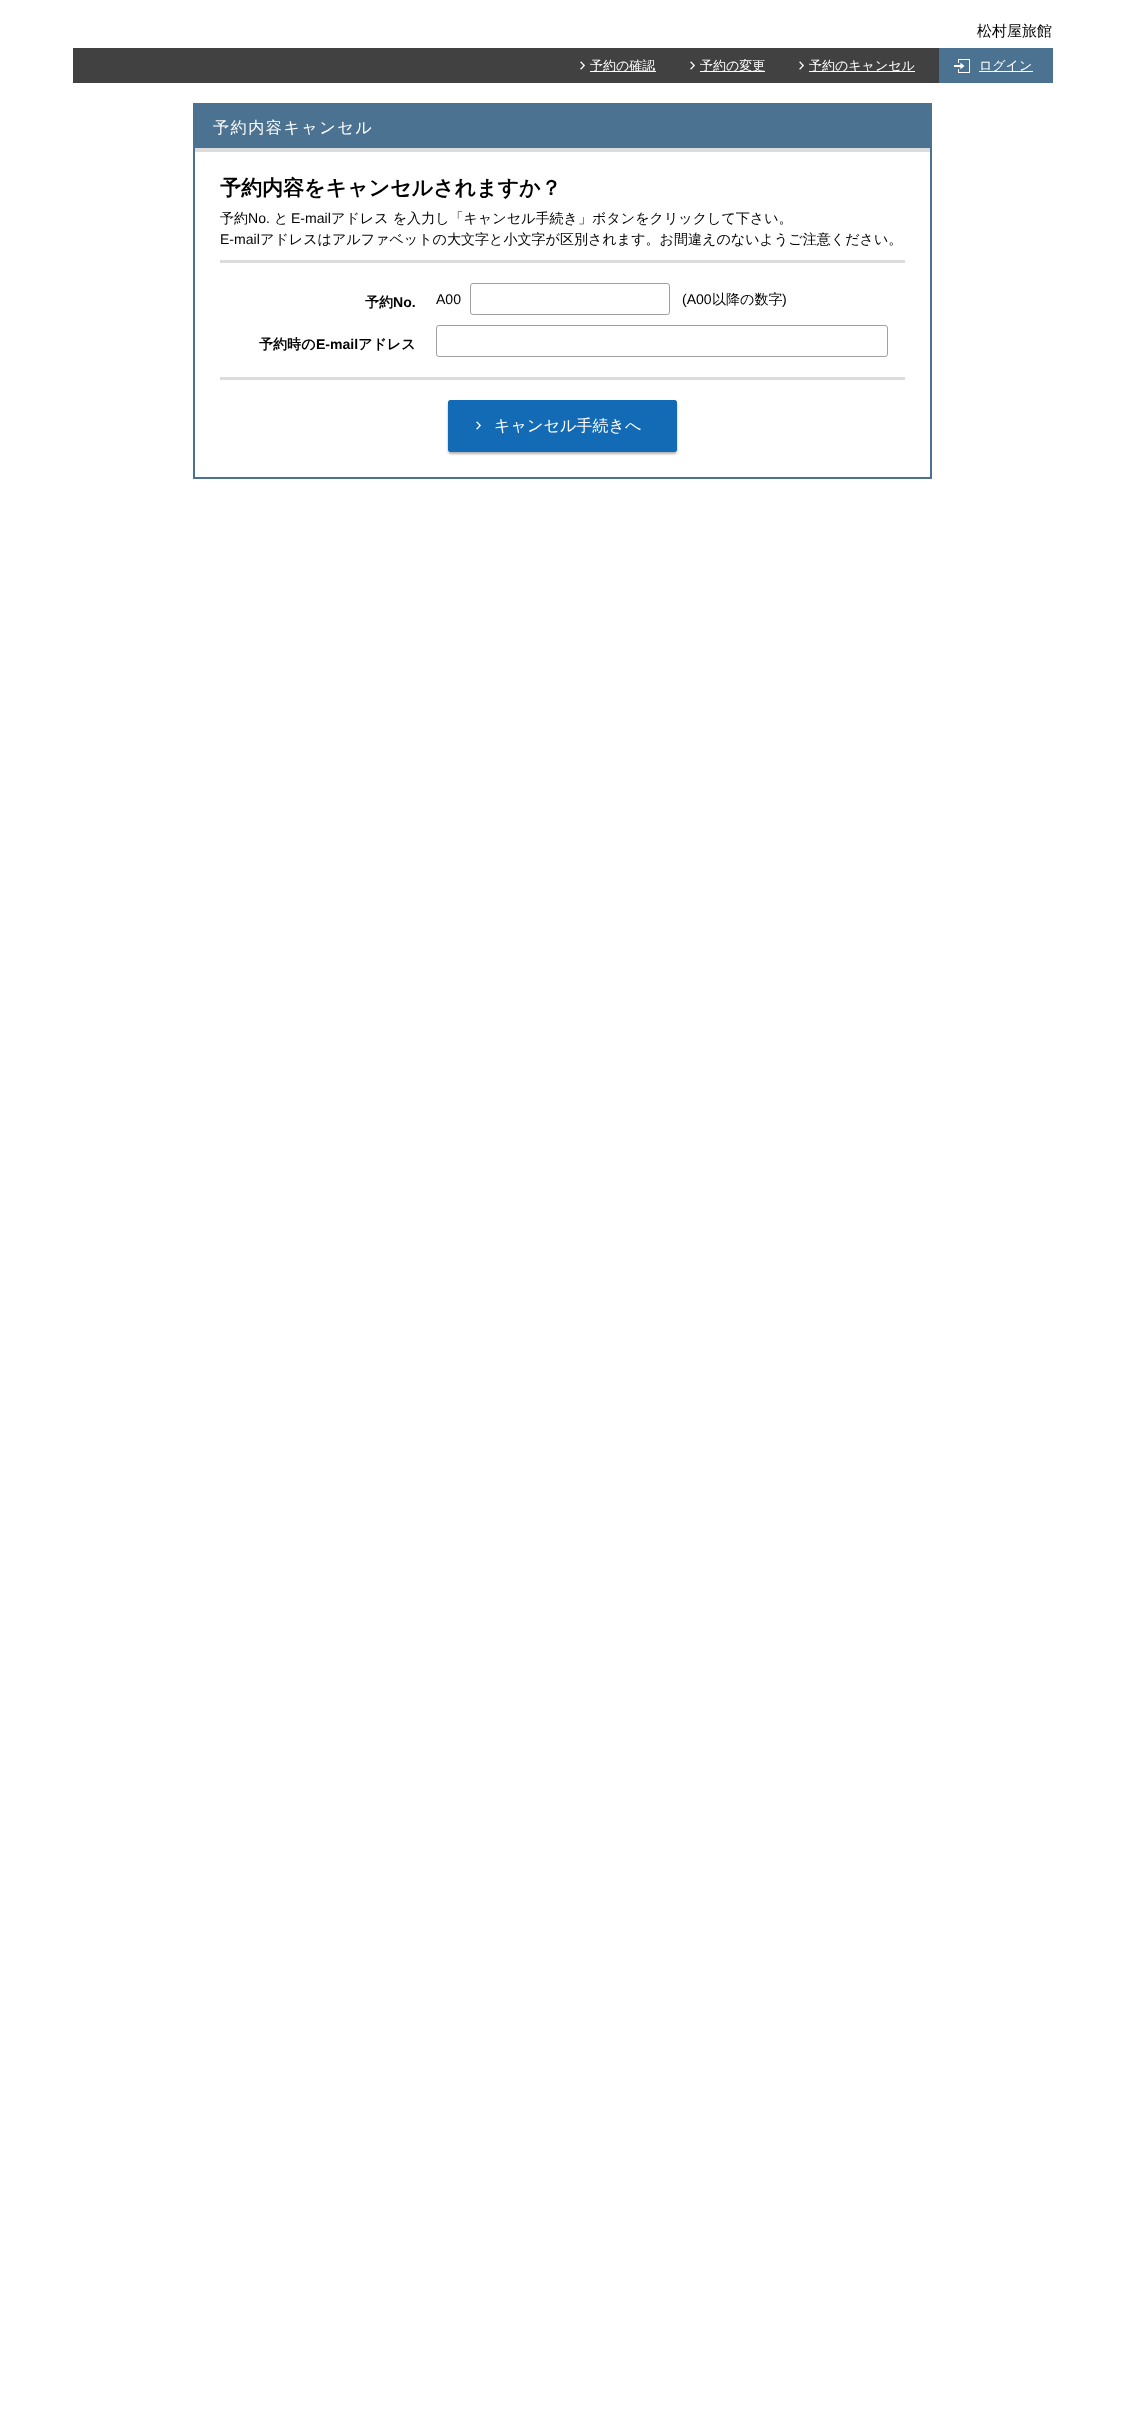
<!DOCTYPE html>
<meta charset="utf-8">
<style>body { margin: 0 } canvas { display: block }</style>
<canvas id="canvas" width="1125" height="2426"></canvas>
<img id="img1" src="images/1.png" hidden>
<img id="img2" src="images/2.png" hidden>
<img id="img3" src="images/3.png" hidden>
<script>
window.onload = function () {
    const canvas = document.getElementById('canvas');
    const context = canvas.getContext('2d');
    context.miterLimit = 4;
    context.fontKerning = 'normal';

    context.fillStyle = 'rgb(255, 255, 255)';
    context.fillRect(0, 0, 1125, 2426);
    context.fillStyle = 'rgb(65, 65, 65)';
    context.fillRect(73, 48, 866, 35);
    context.drawImage(document.getElementById('img1'), 580, 61, 5, 9);
    context.fillStyle = 'rgb(255, 255, 255)';
    context.fillRect(590, 71, 66, 1);
    context.drawImage(document.getElementById('img1'), 690, 61, 5, 9);
    context.fillRect(700, 71, 65, 1);
    context.drawImage(document.getElementById('img1'), 799, 61, 5, 9);
    context.fillRect(809, 71, 106, 1);
    context.fillStyle = 'rgb(76, 114, 145)';
    context.fillRect(939, 48, 114, 35);
    context.drawImage(document.getElementById('img2'), 954, 59, 16, 14);
    context.fillStyle = 'rgb(255, 255, 255)';
    context.fillRect(979, 71, 54, 1);
    context.strokeStyle = 'rgb(76, 114, 145)';
    context.lineWidth = 2;
    context.strokeRect(194, 104, 737, 374);
    context.fillStyle = 'rgb(76, 114, 145)';
    context.fillRect(195, 105, 735, 43);
    context.fillStyle = 'rgb(220, 220, 220)';
    context.fillRect(195, 148, 735, 4);
    context.fillRect(220, 260, 685, 3);
    context.fillRect(220, 377, 685, 3);
    context.beginPath();
    context.roundRect(470.5, 283.5, 199, 31, 2.5);
    context.strokeStyle = 'rgb(160, 160, 160)';
    context.lineWidth = 1;
    context.stroke();
    context.beginPath();
    context.roundRect(436.5, 325.5, 451, 31, 2.5);
    context.stroke();
    context.fillStyle = 'rgba(0, 0, 0, 0.3)';
    context.filter = 'blur(1px)';
    context.beginPath();
    context.roundRect(448, 402, 229, 52, 3);
    context.fill();
    context.filter = 'none';
    context.fillStyle = 'rgb(19, 106, 181)';
    context.beginPath();
    context.roundRect(448, 400, 229, 52, 3);
    context.fill();
    context.drawImage(document.getElementById('img3'), 476, 421, 5, 9);
    context.beginPath();
    context.roundRect(448.5, 400.5, 228, 51, 2.5);
    context.strokeStyle = 'rgb(19, 106, 181)';
    context.stroke();
    context.font = '500 15px WenQuanYi Zen Hei';
    context.fillStyle = 'rgb(0, 0, 0)';
    context.fillText('松村屋旅館', 977, 36);
    context.font = '500 13px WenQuanYi Zen Hei';
    context.fillStyle = 'rgb(255, 255, 255)';
    context.fillText('予約の確認', 590, 70);
    context.fillText('予約の変更', 700, 70);
    context.fillText('予約のキャンセル', 809, 70);
    context.fillText('ログイン', 979, 70);
    context.letterSpacing = '1.5px';
    context.font = '500 16.1px WenQuanYi Zen Hei';
    context.fillText('予約内容キャンセル', 213, 133);
    context.letterSpacing = '0px';
    context.font = 'bold 21px WenQuanYi Zen Hei';
    context.fillStyle = 'rgb(0, 0, 0)';
    context.fillText('予約内容をキャンセルされますか？', 220, 195);
    context.font = '500 14.05px WenQuanYi Zen Hei';
    context.fillText('予約', 220, 223);
    context.font = '14.05px Liberation Sans';
    context.fillText('No.', 248, 223);
    context.font = '500 14.05px WenQuanYi Zen Hei';
    context.fillText('と', 274, 223);
    context.font = '14.05px Liberation Sans';
    context.fillText('E-mail', 291, 223);
    context.font = '500 14.05px WenQuanYi Zen Hei';
    context.fillText('アドレス を入力し「キャンセル手続き」ボタンをクリックして下さい。', 331, 223);
    context.font = '14.05px Liberation Sans';
    context.fillText('E-mail', 220, 244);
    context.font = '500 14.05px WenQuanYi Zen Hei';
    context.fillText('アドレスはアルファベットの大文字と小文字が区別されます。お間違えのないようご注意ください。', 260, 244);
    context.font = 'bold 14.05px WenQuanYi Zen Hei';
    context.fillText('予約', 365, 307);
    context.font = 'bold 14.05px Liberation Sans';
    context.fillText('No.', 393, 307);
    context.font = '14.05px Liberation Sans';
    context.fillText('A00', 436, 304);
    context.fillText('(A00', 682, 304);
    context.font = '500 14.05px WenQuanYi Zen Hei';
    context.fillText('以降の数字', 712, 304);
    context.font = '14.05px Liberation Sans';
    context.fillText(')', 782, 304);
    context.font = 'bold 14.05px WenQuanYi Zen Hei';
    context.fillText('予約時の', 259, 349);
    context.font = 'bold 14.05px Liberation Sans';
    context.fillText('E-mail', 316, 349);
    context.font = 'bold 14.05px WenQuanYi Zen Hei';
    context.fillText('アドレス', 358, 349);
    context.font = '500 16.1px WenQuanYi Zen Hei';
    context.fillStyle = 'rgb(255, 255, 255)';
    context.fillText('キャンセル手続きへ', 494, 431);
};
</script>
